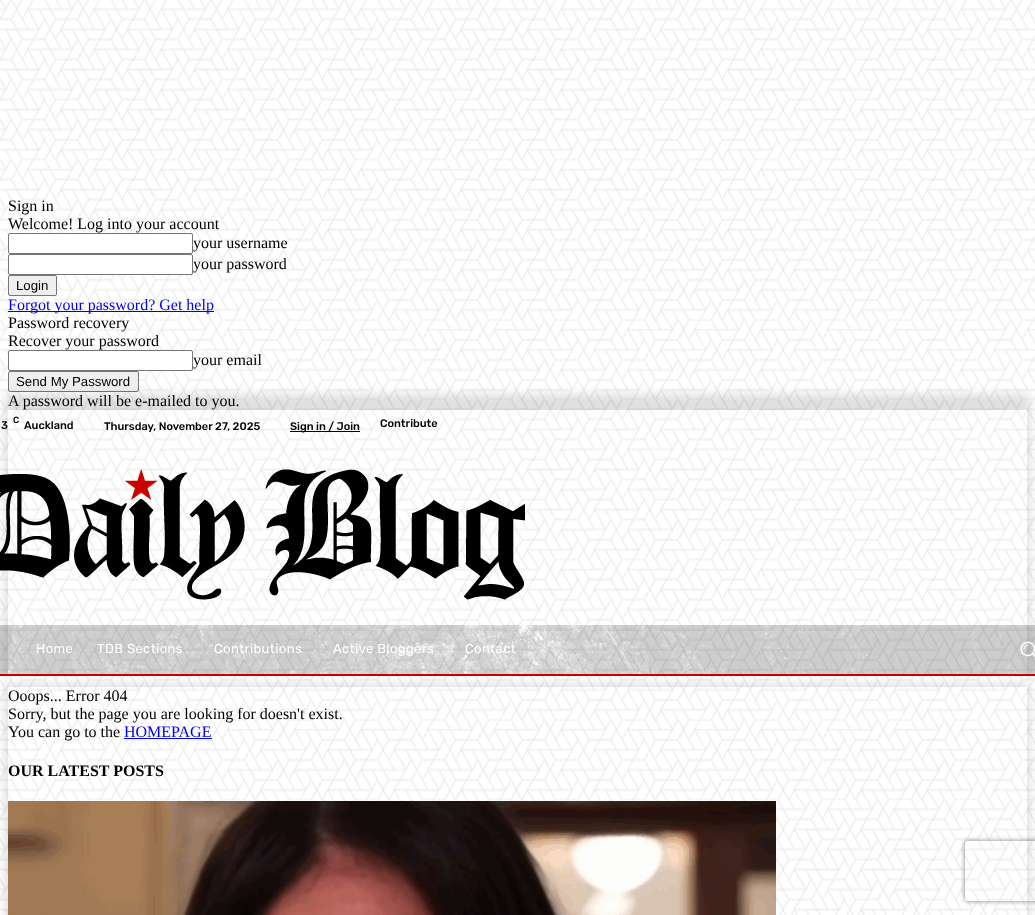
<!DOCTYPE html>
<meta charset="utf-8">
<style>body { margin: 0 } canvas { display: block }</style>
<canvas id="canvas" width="1035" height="915"></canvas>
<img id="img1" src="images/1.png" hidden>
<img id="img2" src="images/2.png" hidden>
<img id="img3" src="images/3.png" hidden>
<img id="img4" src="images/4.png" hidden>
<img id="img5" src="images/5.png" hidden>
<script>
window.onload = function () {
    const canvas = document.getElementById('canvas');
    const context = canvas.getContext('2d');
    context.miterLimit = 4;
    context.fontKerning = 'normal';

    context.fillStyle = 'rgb(255, 255, 255)';
    context.fillRect(0, 0, 1035, 915);
    context.drawImage(document.getElementById('img1'), 0, 0, 1035, 915);
    context.beginPath();
    context.roundRect(8.5, 233.5, 184, 20, 1.5);
    context.fill();
    context.strokeStyle = 'rgb(118, 118, 118)';
    context.stroke();
    context.beginPath();
    context.roundRect(8.5, 254.5, 184, 20, 1.5);
    context.fill();
    context.stroke();
    context.fillStyle = 'rgb(239, 239, 239)';
    context.beginPath();
    context.roundRect(8.5, 275.5, 48, 20, 1.5);
    context.fill();
    context.stroke();
    context.fillStyle = 'rgb(0, 0, 238)';
    context.fillRect(8, 311, 206, 1);
    context.fillStyle = 'rgb(255, 255, 255)';
    context.beginPath();
    context.roundRect(8.5, 350.5, 184, 20, 1.5);
    context.fill();
    context.stroke();
    context.fillStyle = 'rgb(239, 239, 239)';
    context.beginPath();
    context.roundRect(8.5, 371.5, 130, 20, 1.5);
    context.fill();
    context.stroke();
    context.save();
    context.beginPath();
    context.moveTo(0, 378);
    context.lineTo(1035, 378);
    context.lineTo(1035, 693);
    context.lineTo(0, 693);
    context.closePath();
    context.moveTo(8, 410);
    context.lineTo(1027, 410);
    context.lineTo(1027, 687);
    context.lineTo(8, 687);
    context.closePath();
    context.clip('evenodd');
    context.fillStyle = 'rgba(0, 0, 0, 0.12)';
    context.filter = 'blur(5px)';
    context.beginPath();
    context.rect(5, 394, 1025, 283);
    context.fill();
    context.filter = 'none';
    context.restore();
    context.fillStyle = 'rgb(0, 0, 0)';
    context.fillRect(290, 431, 70, 1);
    context.drawImage(document.getElementById('img2'), 0, 469, 525, 131);
    context.save();
    context.beginPath();
    context.moveTo(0, 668);
    context.lineTo(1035, 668);
    context.lineTo(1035, 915);
    context.lineTo(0, 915);
    context.closePath();
    context.moveTo(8, 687);
    context.lineTo(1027, 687);
    context.lineTo(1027, 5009);
    context.lineTo(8, 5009);
    context.closePath();
    context.clip('evenodd');
    context.fillStyle = 'rgba(0, 0, 0, 0.12)';
    context.filter = 'blur(5px)';
    context.beginPath();
    context.rect(5, 684, 1025, 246);
    context.fill();
    context.filter = 'none';
    context.restore();
    context.drawImage(document.getElementById('img3'), 0, 625, 1035, 49);
    context.drawImage(document.getElementById('img4'), 1020, 641, 15, 16);
    context.fillStyle = 'rgb(202, 0, 0)';
    context.fillRect(0, 674, 1035, 2);
    context.fillStyle = 'rgb(0, 0, 238)';
    context.fillRect(124, 738, 88, 1);
    context.drawImage(document.getElementById('img5'), 8, 801, 768, 114);
    context.save();
    context.beginPath();
    context.moveTo(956, 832);
    context.lineTo(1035, 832);
    context.lineTo(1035, 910);
    context.lineTo(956, 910);
    context.closePath();
    context.moveTo(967, 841);
    context.lineTo(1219, 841);
    context.bezierCurveTo(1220, 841, 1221, 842, 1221, 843);
    context.lineTo(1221, 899);
    context.bezierCurveTo(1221, 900, 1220, 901, 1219, 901);
    context.lineTo(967, 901);
    context.bezierCurveTo(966, 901, 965, 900, 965, 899);
    context.lineTo(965, 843);
    context.bezierCurveTo(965, 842, 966, 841, 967, 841);
    context.closePath();
    context.clip('evenodd');
    context.fillStyle = 'rgb(128, 128, 128)';
    context.filter = 'blur(2.5px)';
    context.beginPath();
    context.roundRect(965, 841, 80, 60, 2);
    context.fill();
    context.filter = 'none';
    context.restore();
    context.font = '16px Liberation Serif';
    context.fillStyle = 'rgb(0, 0, 0)';
    context.fillText('Sign in', 8, 211);
    context.fillText('Welcome! Log into your account', 8, 229);
    context.fillText('your username', 193, 248);
    context.fillText('your password', 193, 269);
    context.font = '13.25px Liberation Sans';
    context.fillText('Login', 16, 290);
    context.font = '16px Liberation Serif';
    context.fillStyle = 'rgb(0, 0, 238)';
    context.fillText('Forgot your password? Get help', 8, 310);
    context.fillStyle = 'rgb(0, 0, 0)';
    context.fillText('Password recovery', 8, 328);
    context.fillText('Recover your password', 8, 346);
    context.fillText('your email', 193, 365);
    context.font = '13.25px Liberation Sans';
    context.fillText('Send My Password', 16, 386);
    context.font = '16px Liberation Serif';
    context.fillText('A password will be e-mailed to you.', 8, 406);
    context.font = '500 9px Rubik';
    context.fillText('C', 13, 423);
    context.font = '500 11px Rubik';
    context.fillText('3', 1, 429);
    context.fillText('Auckland', 24, 429);
    context.fillText('Thursday, November 27, 2025', 104, 430);
    context.fillText('Sign in / Join', 290, 430);
    context.fillText('Contribute', 380, 427);
    context.letterSpacing = '0.4px';
    context.font = '13px Rubik';
    context.fillStyle = 'rgb(255, 255, 255)';
    context.fillText('Home', 36, 653);
    context.fillText('TDB Sections', 97, 653);
    context.fillText('Contributions', 214, 653);
    context.fillText('Active Bloggers', 333, 653);
    context.fillText('Contact', 465, 653);
    context.letterSpacing = '0px';
    context.font = '16px Liberation Serif';
    context.fillStyle = 'rgb(0, 0, 0)';
    context.fillText('Ooops... Error 404', 8, 701);
    context.fillText('Sorry, but the page you are looking for doesn\'t exist.', 8, 719);
    context.fillText('You can go to the', 8, 737);
    context.fillStyle = 'rgb(0, 0, 238)';
    context.fillText('HOMEPAGE', 124, 737);
    context.font = 'bold 16px Liberation Serif';
    context.fillStyle = 'rgb(0, 0, 0)';
    context.fillText('OUR LATEST POSTS', 8, 776);
};
</script>
